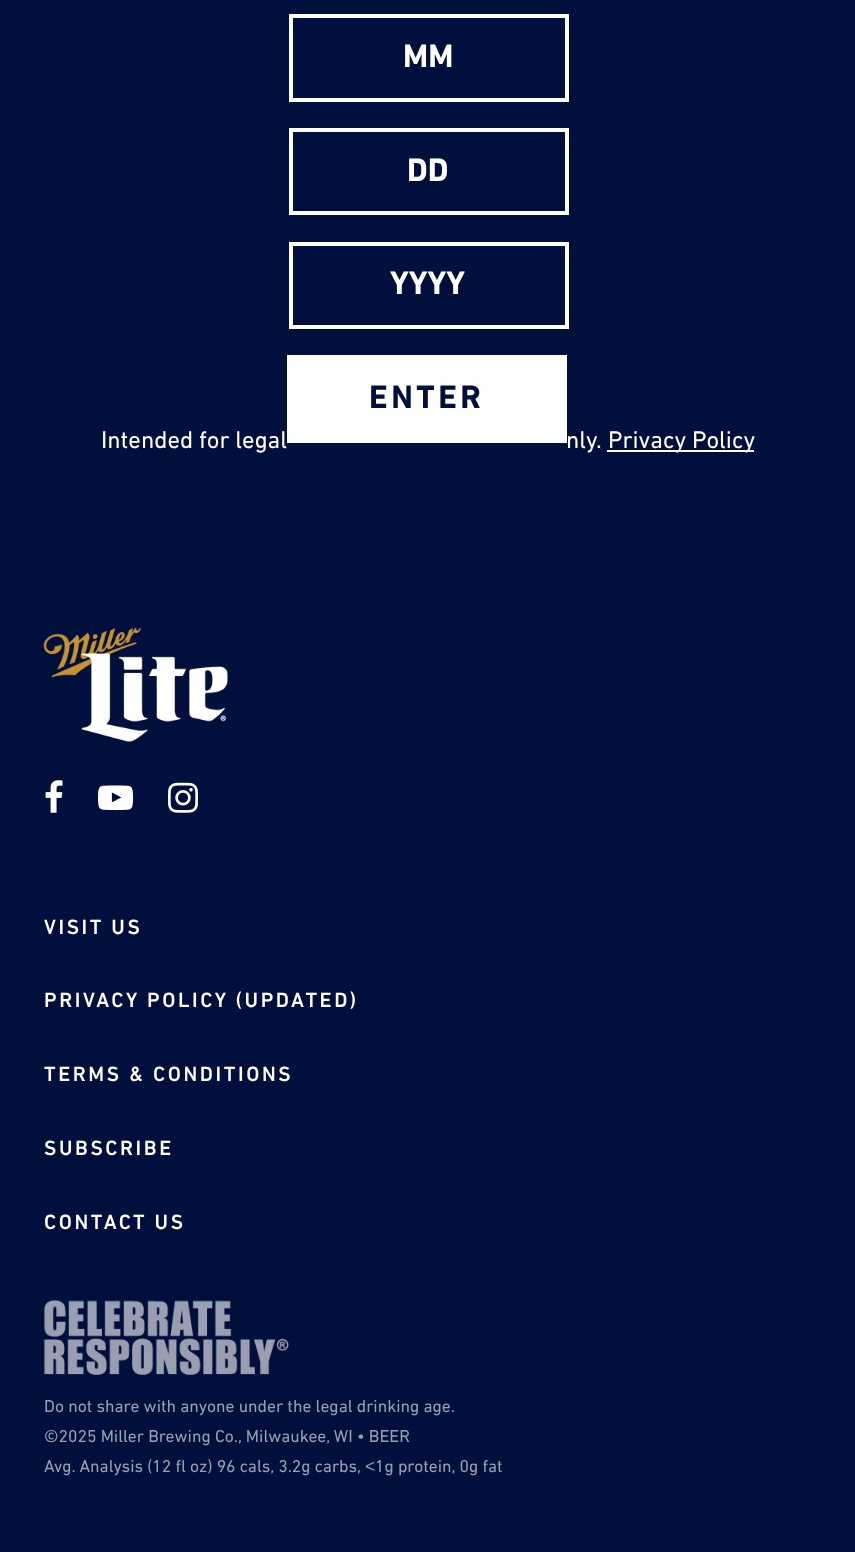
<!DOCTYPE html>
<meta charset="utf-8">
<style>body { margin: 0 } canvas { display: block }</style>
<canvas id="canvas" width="855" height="1552"></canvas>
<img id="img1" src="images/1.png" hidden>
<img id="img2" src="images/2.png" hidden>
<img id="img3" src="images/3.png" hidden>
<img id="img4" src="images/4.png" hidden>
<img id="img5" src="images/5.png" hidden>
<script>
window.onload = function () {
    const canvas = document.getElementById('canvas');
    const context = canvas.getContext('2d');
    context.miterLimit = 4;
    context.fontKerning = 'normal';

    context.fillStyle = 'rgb(0, 15, 60)';
    context.fillRect(0, 0, 855, 1552);
    context.strokeStyle = 'rgb(255, 255, 255)';
    context.lineWidth = 4;
    context.strokeRect(291, 16, 276, 84);
    context.strokeRect(291, 130, 276, 83);
    context.strokeRect(291, 244, 276, 83);
    context.fillStyle = 'rgb(255, 255, 255)';
    context.fillRect(287, 355, 280, 88);
    context.fillRect(607, 450, 147, 2);
    context.drawImage(document.getElementById('img1'), 43, 627, 185, 115);
    context.drawImage(document.getElementById('img2'), 45, 780, 18, 33);
    context.drawImage(document.getElementById('img3'), 98, 785, 35, 26);
    context.drawImage(document.getElementById('img4'), 168, 782, 30, 31);
    context.drawImage(document.getElementById('img5'), 43, 1299, 246, 76);
    context.font = 'bold 33px DIN Next';
    context.fillText('MM', 403, 67);
    context.fillText('DD', 407, 181);
    context.fillText('YYYY', 390, 294);
    context.letterSpacing = '3.5px';
    context.fillStyle = 'rgb(0, 15, 60)';
    context.fillText('ENTER', 369, 408);
    context.letterSpacing = '0px';
    context.font = '24.5px DIN Next';
    context.fillStyle = 'rgb(255, 255, 255)';
    context.fillText('Intended for legal', 101, 448);
    context.fillText('nly.', 566, 448);
    context.fillText('Privacy Policy', 608, 448);
    context.letterSpacing = '2.6px';
    context.font = '500 21px DIN Next';
    context.fillText('VISIT US', 44, 934);
    context.fillText('PRIVACY POLICY (UPDATED)', 44, 1007);
    context.fillText('TERMS & CONDITIONS', 44, 1081);
    context.fillText('SUBSCRIBE', 44, 1155);
    context.fillText('CONTACT US', 44, 1229);
    context.letterSpacing = '0px';
    context.font = '17.5px DIN Next';
    context.fillStyle = 'rgb(153, 159, 177)';
    context.fillText('Do not share with anyone under the legal drinking age.', 44, 1412);
    context.fillText('©2025 Miller Brewing Co., Milwaukee, WI • BEER', 44, 1442);
    context.fillText('Avg. Analysis (12 fl oz) 96 cals, 3.2g carbs,', 44, 1472);
    context.font = '17.5px Liberation Sans';
    context.fillText('<', 365, 1472);
    context.font = '17.5px DIN Next';
    context.fillText('1g protein, 0g fat', 375, 1472);
};
</script>
